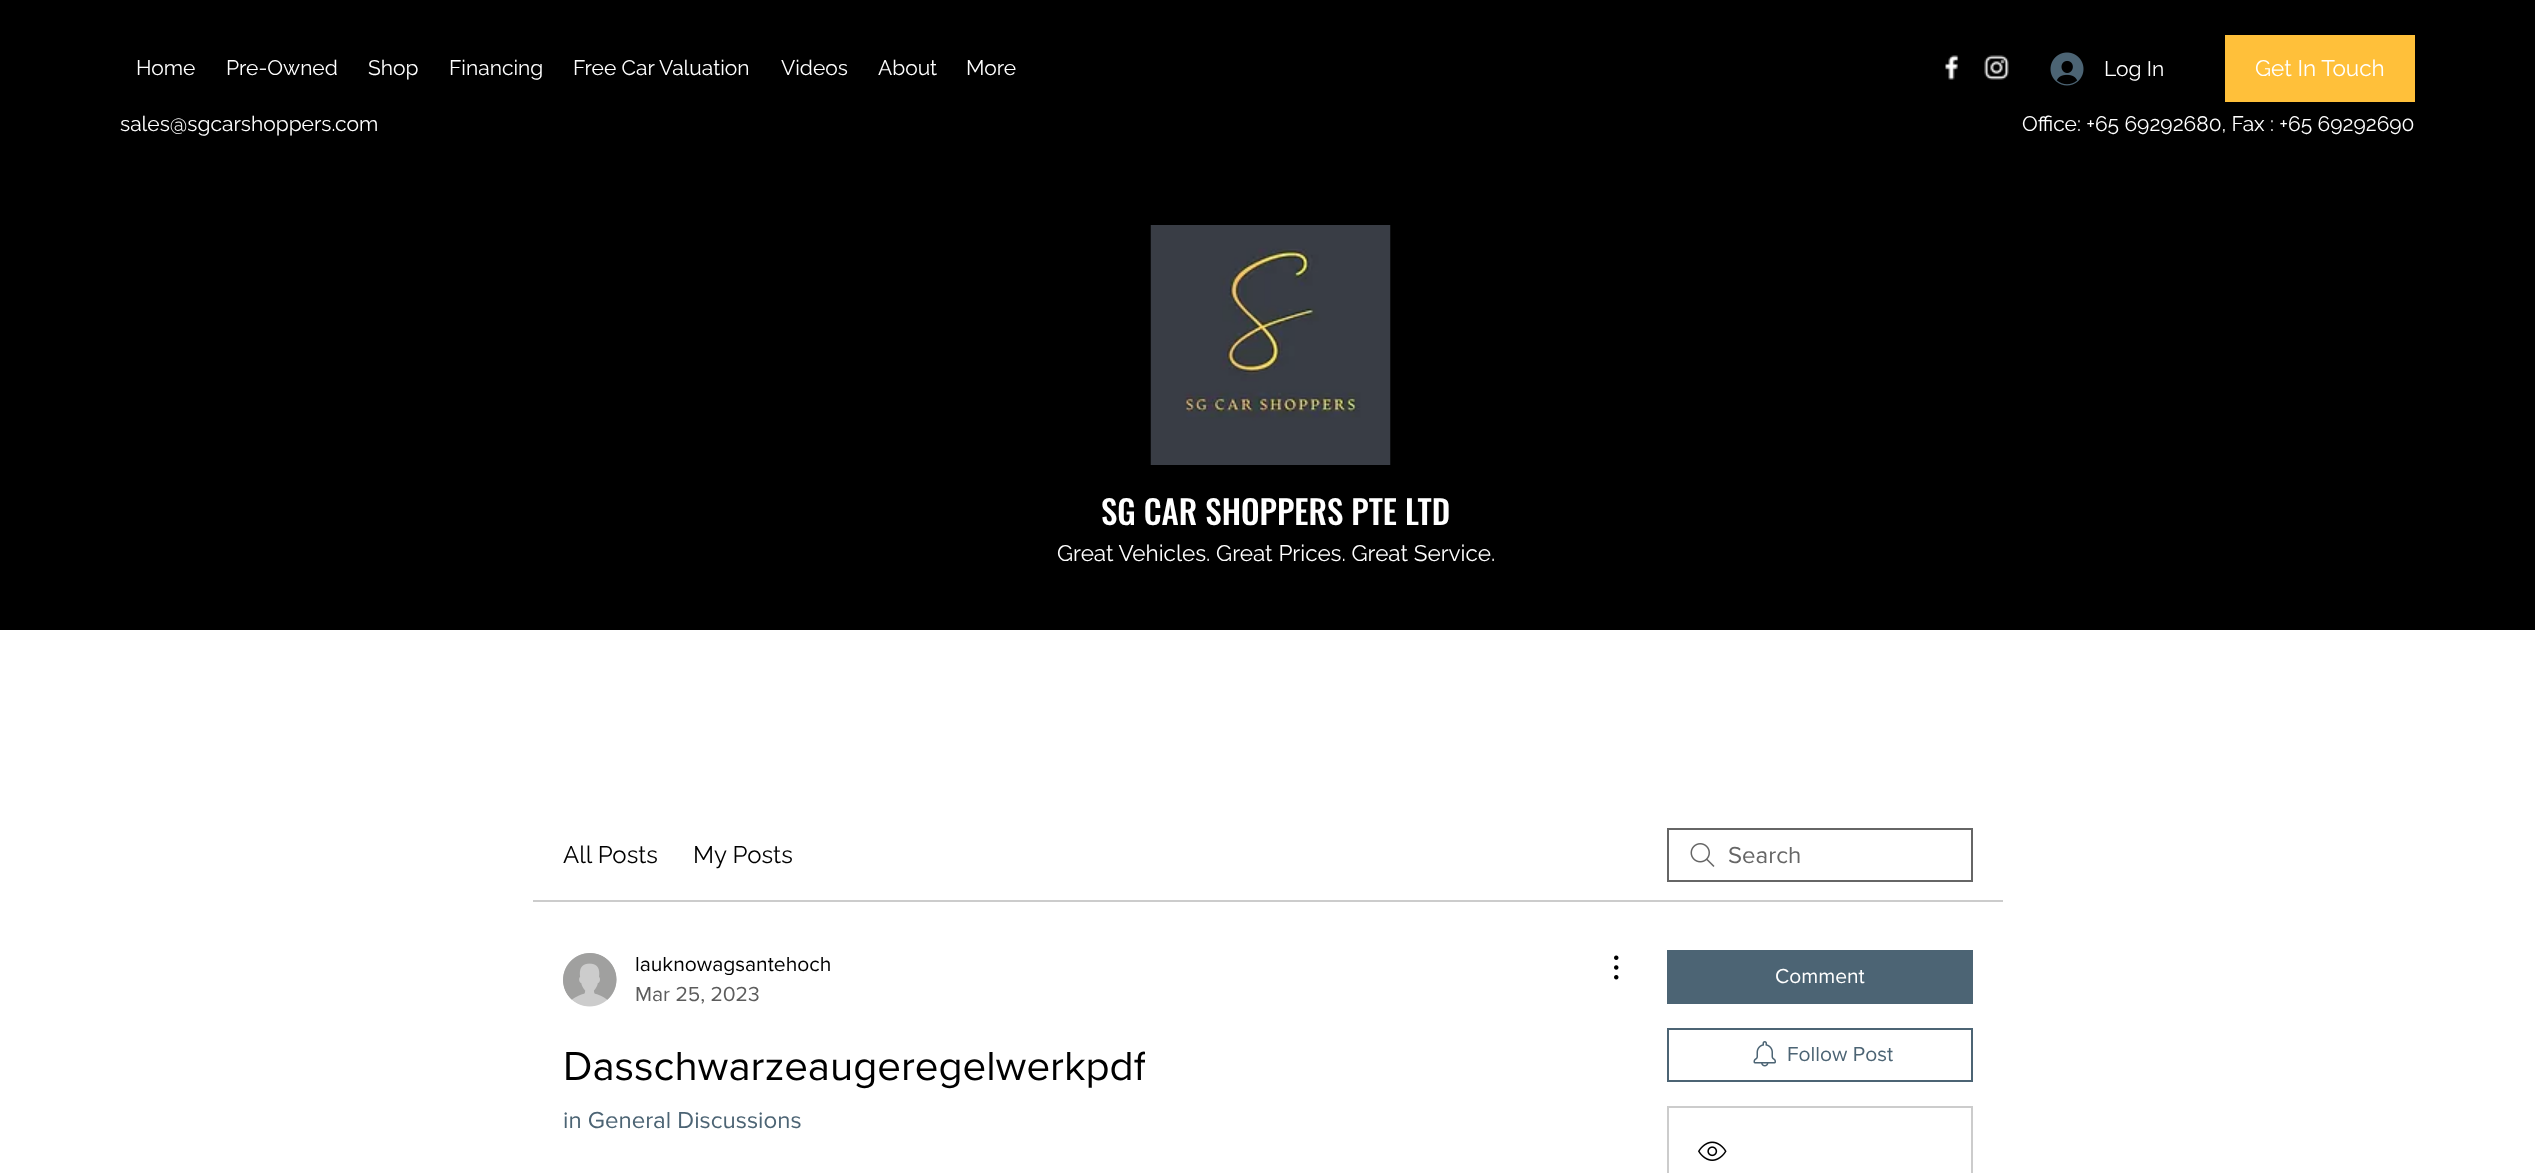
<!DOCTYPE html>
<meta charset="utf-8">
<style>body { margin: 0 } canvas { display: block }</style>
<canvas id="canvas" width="2535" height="1173"></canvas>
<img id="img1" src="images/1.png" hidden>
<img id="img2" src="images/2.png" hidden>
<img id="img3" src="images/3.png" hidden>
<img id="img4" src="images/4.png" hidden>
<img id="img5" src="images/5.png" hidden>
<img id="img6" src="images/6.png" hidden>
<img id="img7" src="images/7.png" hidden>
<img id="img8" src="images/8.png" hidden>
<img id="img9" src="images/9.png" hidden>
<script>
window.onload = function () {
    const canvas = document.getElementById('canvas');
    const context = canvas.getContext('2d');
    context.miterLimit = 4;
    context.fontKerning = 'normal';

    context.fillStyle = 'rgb(255, 255, 255)';
    context.fillRect(0, 0, 2535, 1173);
    context.fillStyle = 'rgb(0, 0, 0)';
    context.fillRect(0, 0, 2535, 630);
    context.drawImage(document.getElementById('img1'), 1945, 55, 14, 25);
    context.drawImage(document.getElementById('img2'), 1984, 55, 25, 25);
    context.drawImage(document.getElementById('img3'), 2050, 52, 34, 34);
    context.fillStyle = 'rgb(255, 192, 58)';
    context.fillRect(2225, 35, 190, 67);
    context.drawImage(document.getElementById('img4'), 1150, 225, 241, 240);
    context.fillStyle = 'rgb(204, 204, 204)';
    context.fillRect(533, 900, 1470, 2);
    context.drawImage(document.getElementById('img5'), 1690, 843, 25, 24);
    context.strokeStyle = 'rgb(102, 102, 102)';
    context.lineWidth = 2;
    context.strokeRect(1668, 829, 304, 52);
    context.drawImage(document.getElementById('img6'), 563, 953, 54, 54);
    context.drawImage(document.getElementById('img7'), 1614, 955, 5, 25);
    context.fillStyle = 'rgb(76, 100, 116)';
    context.fillRect(1667, 950, 306, 54);
    context.strokeStyle = 'rgb(76, 100, 116)';
    context.strokeRect(1668, 1029, 304, 52);
    context.drawImage(document.getElementById('img8'), 1753, 1041, 23, 26);
    context.strokeStyle = 'rgb(204, 204, 204)';
    context.strokeRect(1668, 1107, 304, 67);
    context.drawImage(document.getElementById('img9'), 1698, 1141, 29, 20);
    context.font = '21px Raleway';
    context.fillStyle = 'rgb(255, 255, 255)';
    context.fillText('Home', 136, 75);
    context.fillText('Pre-Owned', 226, 75);
    context.fillText('Shop', 368, 75);
    context.fillText('Financing', 449, 75);
    context.fillText('Free Car Valuation', 573, 75);
    context.fillText('Videos', 781, 75);
    context.fillText('About', 878, 75);
    context.fillText('More', 966, 75);
    context.fillText('Log In', 2104, 76);
    context.font = '22.5px Raleway';
    context.fillText('Get In Touch', 2255, 76);
    context.font = '21px Raleway';
    context.fillText('sales@sgcarshoppers.com', 120, 131);
    context.fillText('Office: +65 69292680, Fax : +65 69292690', 2022, 131);
    context.font = '500 33px Oswald';
    context.fillText('SG CAR SHOPPERS PTE LTD', 1101, 525);
    context.font = '22.5px Raleway';
    context.fillText('Great Vehicles. Great Prices. Great Service.', 1057, 561);
    context.font = '24px Raleway';
    context.fillStyle = 'rgb(0, 0, 0)';
    context.fillText('All Posts', 563, 863);
    context.fillText('My Posts', 693, 863);
    context.font = '24px "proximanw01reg"';
    context.fillStyle = 'rgb(102, 102, 102)';
    context.fillText('Search', 1728, 863);
    context.font = '21px "proximanw01reg"';
    context.fillStyle = 'rgb(0, 0, 0)';
    context.fillText('lauknowagsantehoch', 635, 971);
    context.fillStyle = 'rgb(92, 92, 92)';
    context.fillText('Mar 25, 2023', 635, 1001);
    context.save();
    context.beginPath();
    context.rect(563, 1040, 582, 54);
    context.clip();
    context.font = '42px "proximanw01reg"';
    context.fillStyle = 'rgb(0, 0, 0)';
    context.fillText('Dasschwarzeaugeregelwerkpdf', 563, 1080);
    context.restore();
    context.font = '24px "proximanw01reg"';
    context.fillStyle = 'rgb(76, 100, 116)';
    context.fillText('in General Discussions', 563, 1128);
    context.font = '21px "proximanw01reg"';
    context.fillStyle = 'rgb(255, 255, 255)';
    context.fillText('Comment', 1775, 983);
    context.fillStyle = 'rgb(76, 100, 116)';
    context.fillText('Follow Post', 1787, 1061);
};
</script>
